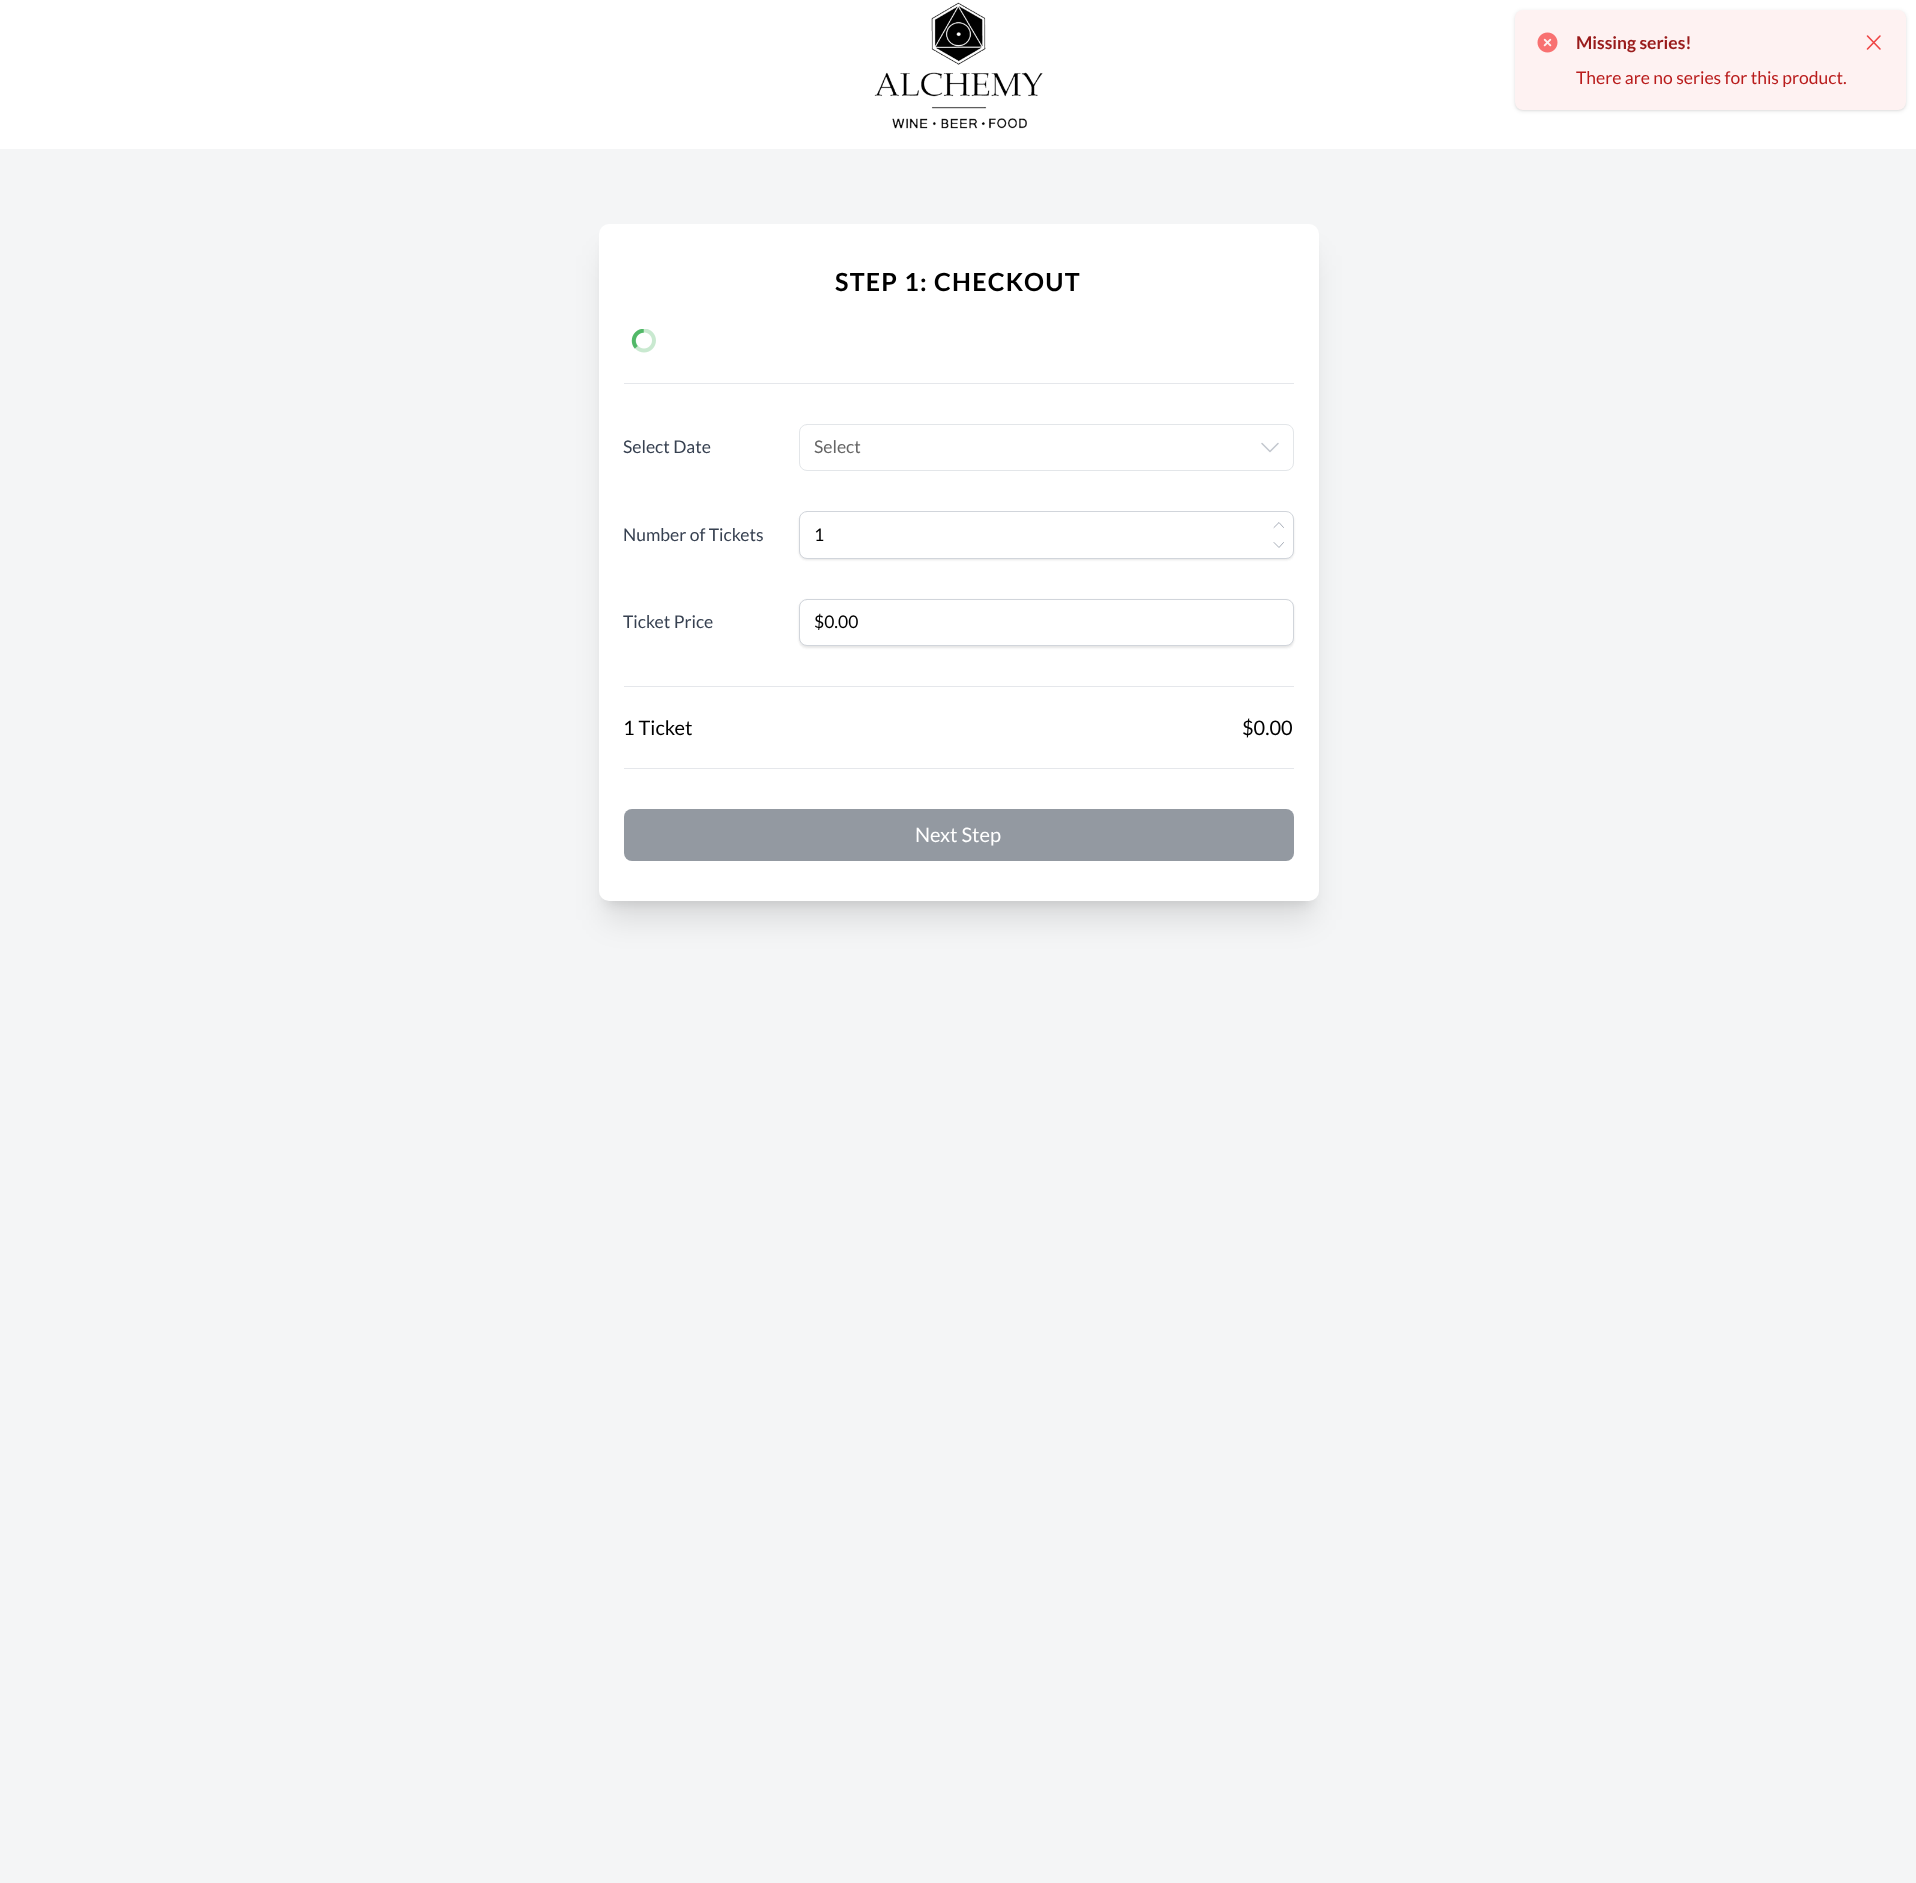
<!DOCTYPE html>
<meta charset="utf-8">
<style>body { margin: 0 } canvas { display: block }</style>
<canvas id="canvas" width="1916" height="1883"></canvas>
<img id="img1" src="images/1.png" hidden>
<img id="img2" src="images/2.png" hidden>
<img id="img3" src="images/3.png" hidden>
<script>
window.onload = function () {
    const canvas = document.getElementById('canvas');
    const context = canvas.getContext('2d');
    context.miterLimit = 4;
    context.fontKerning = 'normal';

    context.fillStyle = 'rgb(244, 245, 246)';
    context.fillRect(0, 0, 1916, 1883);
    context.fillStyle = 'rgb(255, 255, 255)';
    context.fillRect(0, 0, 1916, 149);
    context.drawImage(document.getElementById('img1'), 874, 2, 169, 127);
    context.fillStyle = 'rgba(0, 0, 0, 0.1)';
    context.filter = 'blur(1px)';
    context.beginPath();
    context.roundRect(1516, 13, 389, 97, 6);
    context.fill();
    context.filter = 'none';
    context.filter = 'blur(2px)';
    context.beginPath();
    context.roundRect(1515, 11, 391, 100, 8);
    context.fill();
    context.filter = 'none';
    context.fillStyle = 'rgb(254, 242, 242)';
    context.beginPath();
    context.roundRect(1515, 10, 391, 100, 8);
    context.fill();
    context.drawImage(document.getElementById('img2'), 1537, 32, 21, 21);
    context.beginPath();
    context.moveTo(1867.5, 49);
    context.lineTo(1880, 36);
    context.moveTo(1867.5, 36);
    context.lineTo(1880, 49);
    context.strokeStyle = 'rgb(239, 68, 68)';
    context.lineWidth = 1.6;
    context.lineCap = 'round';
    context.lineJoin = 'round';
    context.stroke();
    context.fillStyle = 'rgba(0, 0, 0, 0.1)';
    context.filter = 'blur(6px)';
    context.beginPath();
    context.roundRect(606, 241, 705, 663, 2.5);
    context.fill();
    context.filter = 'none';
    context.filter = 'blur(15.5px)';
    context.beginPath();
    context.roundRect(605, 255, 708, 665, 4);
    context.fill();
    context.filter = 'none';
    context.fillStyle = 'rgb(255, 255, 255)';
    context.beginPath();
    context.roundRect(599, 224, 720, 677, 10);
    context.fill();
    context.fillStyle = 'rgb(229, 231, 235)';
    context.fillRect(624, 383, 670, 1);
    context.drawImage(document.getElementById('img3'), 631, 329, 25, 24);
    context.beginPath();
    context.roundRect(799.5, 424.5, 494, 46, 7.5);
    context.strokeStyle = 'rgb(227, 230, 233)';
    context.lineWidth = 1;
    context.lineJoin = 'miter';
    context.stroke();
    context.beginPath();
    context.moveTo(1278, 443.5);
    context.lineTo(1270, 451.5);
    context.lineTo(1262, 443.5);
    context.strokeStyle = 'rgb(196, 200, 207)';
    context.lineWidth = 1.6;
    context.lineJoin = 'round';
    context.stroke();
    context.fillStyle = 'rgba(0, 0, 0, 0.05)';
    context.filter = 'blur(1px)';
    context.beginPath();
    context.roundRect(799, 513, 495, 47, 8);
    context.fill();
    context.filter = 'none';
    context.filter = 'blur(1px)';
    context.beginPath();
    context.roundRect(799, 513, 495, 47, 8);
    context.fill();
    context.filter = 'none';
    context.fillStyle = 'rgb(255, 255, 255)';
    context.beginPath();
    context.roundRect(799.5, 511.5, 494, 47, 7.5);
    context.fill();
    context.strokeStyle = 'rgb(209, 213, 219)';
    context.lineWidth = 1;
    context.lineJoin = 'miter';
    context.stroke();
    context.beginPath();
    context.moveTo(1274, 527.5);
    context.lineTo(1279, 522.5);
    context.lineTo(1283.5, 527.5);
    context.moveTo(1283.5, 542.5);
    context.lineTo(1279, 547.5);
    context.lineTo(1274, 542.5);
    context.strokeStyle = 'rgb(156, 163, 175)';
    context.lineWidth = 0.9;
    context.lineJoin = 'round';
    context.stroke();
    context.fillStyle = 'rgba(0, 0, 0, 0.05)';
    context.filter = 'blur(1px)';
    context.beginPath();
    context.roundRect(799, 600, 495, 48, 8);
    context.fill();
    context.filter = 'none';
    context.filter = 'blur(1px)';
    context.beginPath();
    context.roundRect(799, 600, 495, 48, 8);
    context.fill();
    context.filter = 'none';
    context.fillStyle = 'rgb(255, 255, 255)';
    context.beginPath();
    context.roundRect(799.5, 599.5, 494, 46, 7.5);
    context.fill();
    context.strokeStyle = 'rgb(209, 213, 219)';
    context.lineWidth = 1;
    context.lineJoin = 'miter';
    context.stroke();
    context.fillStyle = 'rgb(229, 231, 235)';
    context.fillRect(624, 686, 670, 1);
    context.fillRect(624, 768, 670, 1);
    context.fillStyle = 'rgb(147, 153, 161)';
    context.beginPath();
    context.roundRect(624, 809, 670, 52, 8);
    context.fill();
    context.font = 'bold 17.5px Lato';
    context.fillStyle = 'rgb(153, 27, 27)';
    context.fillText('Missing series!', 1576, 49);
    context.font = '17.5px Lato';
    context.fillStyle = 'rgb(185, 28, 28)';
    context.fillText('There are no series for this product.', 1576, 84);
    context.letterSpacing = '1.25px';
    context.font = 'bold 25px Lato';
    context.fillStyle = 'rgb(0, 0, 0)';
    context.fillText('STEP 1: CHECKOUT', 835, 291);
    context.letterSpacing = '0px';
    context.font = '17.5px Lato';
    context.fillStyle = 'rgb(55, 65, 81)';
    context.fillText('Select Date', 623, 453);
    context.fillStyle = 'rgb(102, 102, 102)';
    context.fillText('Select', 814, 453);
    context.fillStyle = 'rgb(55, 65, 81)';
    context.fillText('Number of Tickets', 623, 541);
    context.fillStyle = 'rgb(0, 0, 0)';
    context.fillText('1', 814, 541);
    context.fillStyle = 'rgb(55, 65, 81)';
    context.fillText('Ticket Price', 623, 628);
    context.fillStyle = 'rgb(0, 0, 0)';
    context.fillText('$0.00', 814, 628);
    context.font = '20px Lato';
    context.fillText('1 Ticket', 623, 735);
    context.fillText('$0.00', 1242, 735);
    context.fillStyle = 'rgb(255, 255, 255)';
    context.fillText('Next Step', 915, 842);
};
</script>
